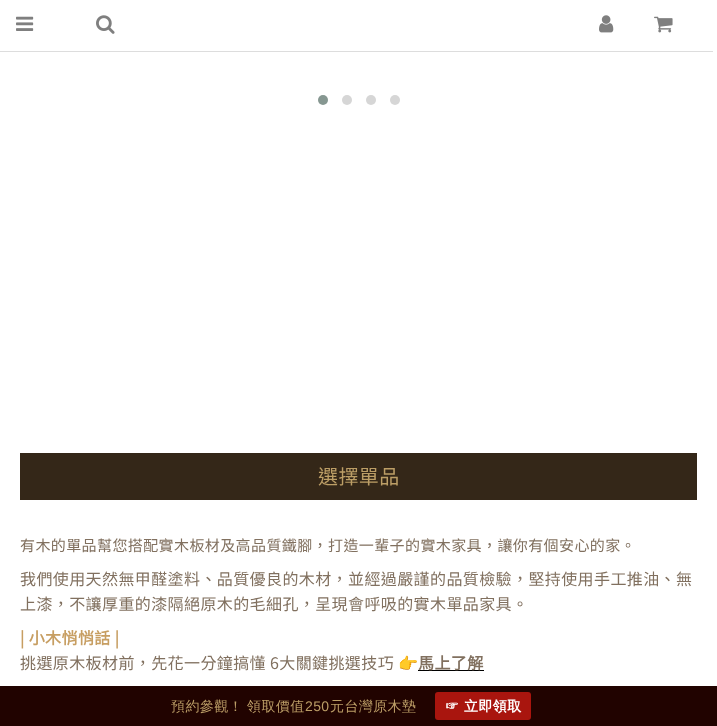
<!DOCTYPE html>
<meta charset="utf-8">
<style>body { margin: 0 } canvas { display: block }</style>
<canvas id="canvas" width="717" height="726"></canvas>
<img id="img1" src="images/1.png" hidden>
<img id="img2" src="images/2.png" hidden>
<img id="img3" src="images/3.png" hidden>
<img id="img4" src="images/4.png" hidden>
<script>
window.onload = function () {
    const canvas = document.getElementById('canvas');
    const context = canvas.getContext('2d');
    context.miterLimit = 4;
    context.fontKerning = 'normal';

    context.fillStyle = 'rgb(255, 255, 255)';
    context.fillRect(0, 0, 717, 726);
    context.fillStyle = 'rgb(221, 221, 221)';
    context.fillRect(0, 51, 713, 1);
    context.drawImage(document.getElementById('img1'), 16, 16, 18, 15);
    context.drawImage(document.getElementById('img2'), 96, 15, 19, 19);
    context.drawImage(document.getElementById('img3'), 599, 15, 15, 18);
    context.drawImage(document.getElementById('img4'), 654, 16, 19, 17);
    context.fillStyle = 'rgb(134, 151, 145)';
    context.beginPath();
    context.arc(323, 100, 5, 0, 2 * Math.PI);
    context.fill();
    context.fillStyle = 'rgb(214, 214, 214)';
    context.beginPath();
    context.arc(347, 100, 5, 0, 2 * Math.PI);
    context.fill();
    context.beginPath();
    context.arc(371, 100, 5, 0, 2 * Math.PI);
    context.fill();
    context.beginPath();
    context.arc(395, 100, 5, 0, 2 * Math.PI);
    context.fill();
    context.fillStyle = 'rgb(52, 39, 24)';
    context.fillRect(20, 453, 677, 47);
    context.fillStyle = 'rgb(0, 0, 0)';
    context.fillRect(418, 670, 66, 1);
    context.fillStyle = 'rgb(33, 3, 0)';
    context.fillRect(0, 686, 717, 40);
    context.fillStyle = 'rgb(169, 21, 14)';
    context.beginPath();
    context.roundRect(435, 692, 96, 28, 3);
    context.fill();
    context.letterSpacing = '0.4px';
    context.font = '100 20px Noto Sans TC';
    context.fillStyle = 'rgb(188, 158, 102)';
    context.fillText('選擇單品', 318, 484);
    context.font = '100 15px Noto Sans TC';
    context.fillStyle = 'rgb(129, 112, 95)';
    context.fillText('有木的單品幫您搭配實木板材及高品質鐵腳，打造一輩子的實木家具，讓你有個安心的家。', 20, 551);
    context.font = '100 16px Noto Sans TC';
    context.fillText('我們使用天然無甲醛塗料、品質優良的木材，並經過嚴謹的品質檢驗，堅持使用手工推油、無', 20, 585);
    context.fillText('上漆，不讓厚重的漆隔絕原木的毛細孔，呈現會呼吸的實木單品家具。', 20, 610);
    context.font = 'bold 16px Noto Sans TC';
    context.fillStyle = 'rgb(199, 158, 98)';
    context.fillText('| 小木悄悄話 |', 20, 644);
    context.font = '100 16px Noto Sans TC';
    context.fillStyle = 'rgb(129, 112, 95)';
    context.fillText('挑選原木板材前，先花一分鐘搞懂 6大關鍵挑選技巧', 20, 669);
    context.font = '16px Noto Color Emoji';
    context.fillStyle = 'rgb(0, 0, 0)';
    context.fillText('👉', 398, 669);
    context.font = 'bold 16px Noto Sans TC';
    context.fillStyle = 'rgb(129, 112, 95)';
    context.fillText('馬上了解', 418, 669);
    context.font = '500 14px WenQuanYi Zen Hei';
    context.fillStyle = 'rgb(188, 158, 102)';
    context.fillText('預約參觀！', 171, 711);
    context.fillText('領取價值', 247, 711);
    context.font = '14px Liberation Sans';
    context.fillText('250', 305, 711);
    context.font = '500 14px WenQuanYi Zen Hei';
    context.fillText('元台灣原木墊', 330, 711);
    context.font = 'bold 14px WenQuanYi Zen Hei';
    context.fillStyle = 'rgb(255, 255, 255)';
    context.fillText('☞ 立即領取', 445, 711);
};
</script>
